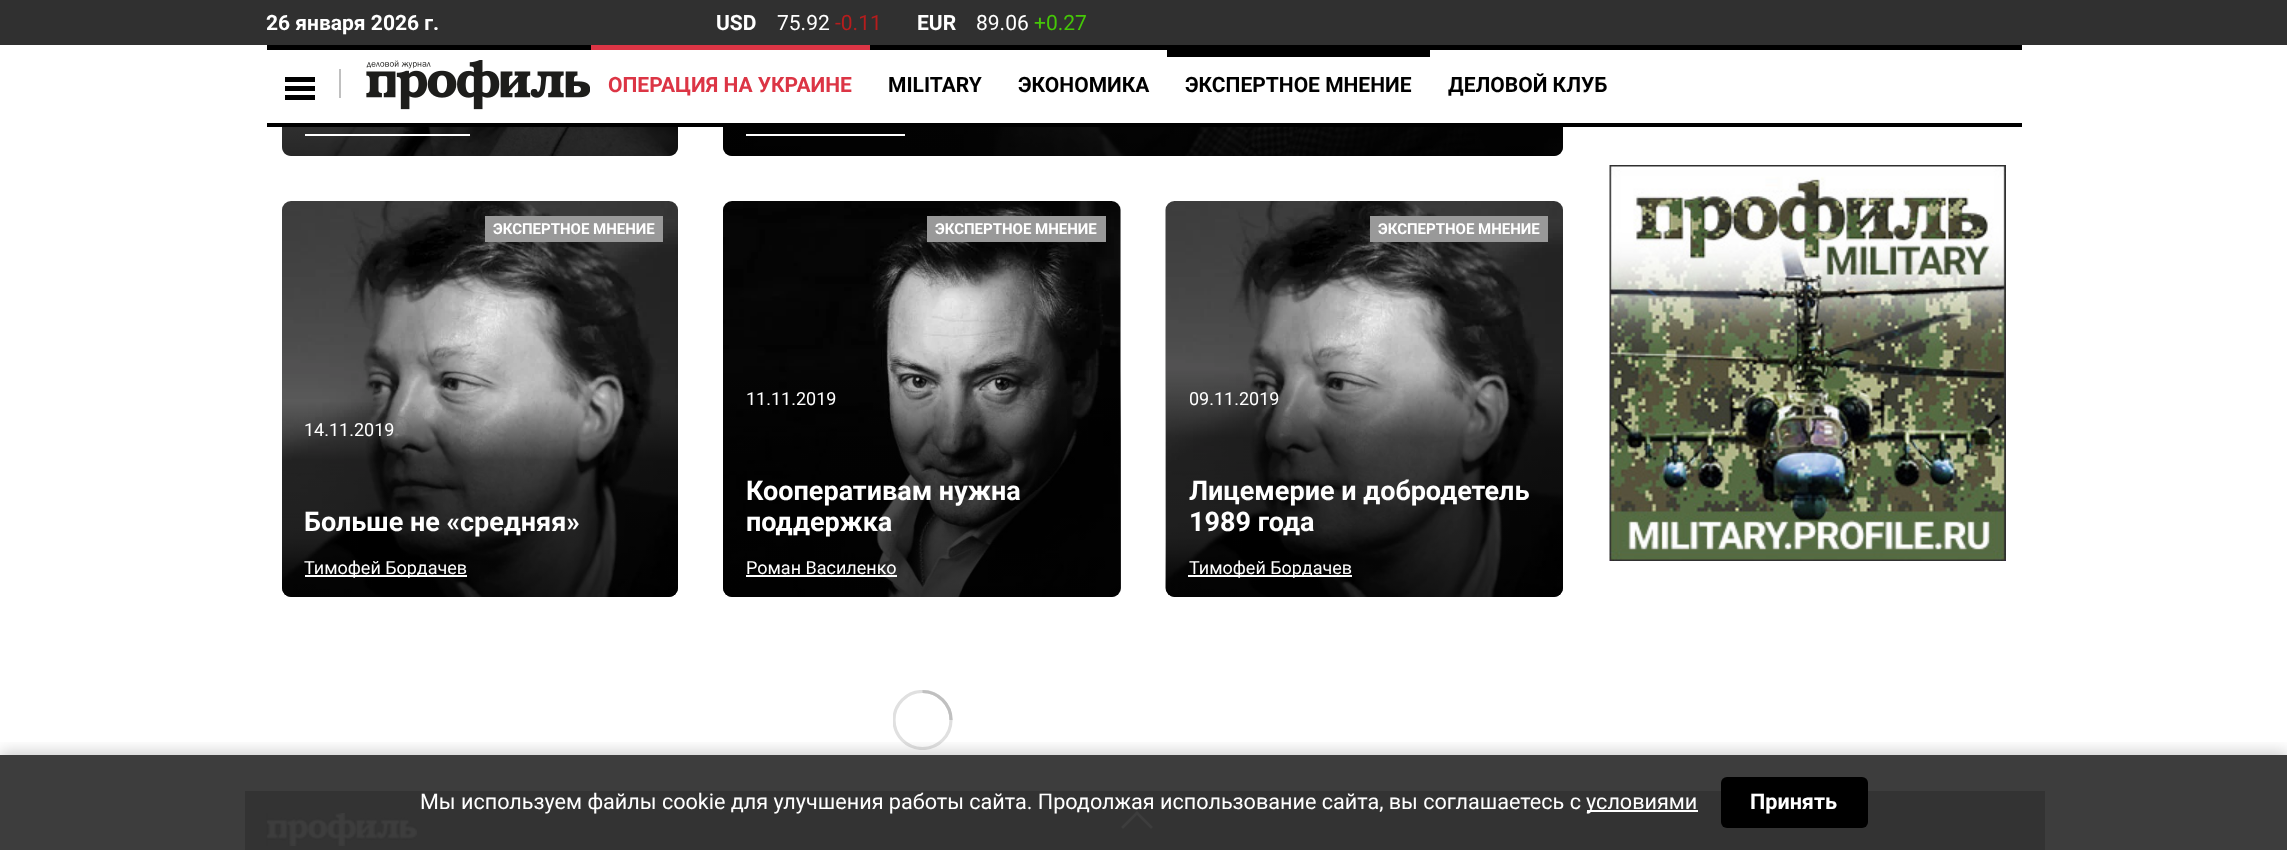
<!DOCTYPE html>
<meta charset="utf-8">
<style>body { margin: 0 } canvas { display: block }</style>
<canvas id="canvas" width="2287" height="850"></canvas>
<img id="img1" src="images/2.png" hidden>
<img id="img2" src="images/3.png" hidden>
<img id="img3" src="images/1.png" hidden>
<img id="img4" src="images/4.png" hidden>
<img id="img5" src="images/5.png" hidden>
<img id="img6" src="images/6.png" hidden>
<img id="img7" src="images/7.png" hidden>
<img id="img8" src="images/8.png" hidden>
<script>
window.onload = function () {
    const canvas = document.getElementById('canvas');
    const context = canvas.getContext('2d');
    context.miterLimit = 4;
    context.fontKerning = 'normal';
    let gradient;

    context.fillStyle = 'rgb(255, 255, 255)';
    context.fillRect(0, 0, 2287, 850);
    context.fillStyle = 'rgb(61, 61, 61)';
    context.fillRect(0, 755, 2287, 95);
    context.fillStyle = 'rgb(236, 236, 236)';
    context.beginPath();
    context.roundRect(282, -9, 396, 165, 9);
    context.fill();
    context.drawImage(document.getElementById('img1'), 282, 127, 396, 29);
    gradient = context.createLinearGradient(480, -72, 480, 156);
    gradient.addColorStop(0, 'rgba(0, 0, 0, 0)');
    gradient.addColorStop(0.3, 'rgba(0, 0, 0, 0.6)');
    gradient.addColorStop(1, 'rgba(0, 0, 0, 0.8)');
    context.fillStyle = gradient;
    context.beginPath();
    context.moveTo(282, -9);
    context.lineTo(678, -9);
    context.lineTo(678, 147);
    context.bezierCurveTo(678, 152, 674, 156, 669, 156);
    context.lineTo(291, 156);
    context.bezierCurveTo(286, 156, 282, 152, 282, 147);
    context.closePath();
    context.fill();
    context.fillStyle = 'rgb(236, 236, 236)';
    context.beginPath();
    context.roundRect(723, -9, 840, 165, 9);
    context.fill();
    context.drawImage(document.getElementById('img2'), 723, 127, 840, 29);
    gradient = context.createLinearGradient(1143, -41, 1143, 156);
    gradient.addColorStop(0, 'rgba(0, 0, 0, 0)');
    gradient.addColorStop(0.3, 'rgba(0, 0, 0, 0.6)');
    gradient.addColorStop(1, 'rgba(0, 0, 0, 0.8)');
    context.fillStyle = gradient;
    context.beginPath();
    context.moveTo(723, -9);
    context.lineTo(1563, -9);
    context.lineTo(1563, 147);
    context.bezierCurveTo(1563, 152, 1559, 156, 1554, 156);
    context.lineTo(732, 156);
    context.bezierCurveTo(727, 156, 723, 152, 723, 147);
    context.closePath();
    context.fill();
    context.fillStyle = 'rgb(48, 48, 48)';
    context.fillRect(0, 0, 2287, 45);
    context.fillStyle = 'rgb(255, 255, 255)';
    context.fillRect(282, 50, 1281, 73);
    context.fillStyle = 'rgb(0, 0, 0)';
    context.fillRect(267, 123, 1755, 4);
    context.fillRect(267, 45, 1755, 5);
    context.fillRect(285, 86, 30, 5);
    context.fillRect(285, 77, 30, 5);
    context.fillRect(285, 95, 30, 5);
    context.fillStyle = 'rgb(192, 192, 192)';
    context.fillRect(339, 69, 2, 29);
    context.drawImage(document.getElementById('img3'), 366, 60, 224, 50);
    context.fillStyle = 'rgb(220, 53, 69)';
    context.fillRect(591, 45, 279, 5);
    context.fillStyle = 'rgb(0, 0, 0)';
    context.fillRect(1167, 50, 263, 7);
    context.fillStyle = 'rgb(255, 255, 255)';
    context.fillRect(305, 134, 165, 2);
    context.fillRect(746, 134, 159, 2);
    context.fillStyle = 'rgb(236, 236, 236)';
    context.beginPath();
    context.roundRect(282, 201, 396, 396, 9);
    context.fill();
    context.drawImage(document.getElementById('img4'), 282, 201, 396, 396);
    context.fillStyle = 'rgb(153, 153, 153)';
    context.fillRect(485, 216, 178, 26);
    gradient = context.createLinearGradient(480, 401, 480, 597);
    gradient.addColorStop(0, 'rgba(0, 0, 0, 0)');
    gradient.addColorStop(0.3, 'rgba(0, 0, 0, 0.6)');
    gradient.addColorStop(1, 'rgba(0, 0, 0, 0.8)');
    context.fillStyle = gradient;
    context.beginPath();
    context.roundRect(282, 401, 396, 196, [0, 0, 9, 9]);
    context.fill();
    context.fillStyle = 'rgb(255, 255, 255)';
    context.fillRect(305, 575, 162, 2);
    context.fillStyle = 'rgb(236, 236, 236)';
    context.beginPath();
    context.roundRect(723, 201, 398, 396, 9);
    context.fill();
    context.drawImage(document.getElementById('img5'), 723, 201, 398, 396);
    context.fillStyle = 'rgb(153, 153, 153)';
    context.fillRect(927, 216, 179, 26);
    gradient = context.createLinearGradient(922, 369, 922, 597);
    gradient.addColorStop(0, 'rgba(0, 0, 0, 0)');
    gradient.addColorStop(0.3, 'rgba(0, 0, 0, 0.6)');
    gradient.addColorStop(1, 'rgba(0, 0, 0, 0.8)');
    context.fillStyle = gradient;
    context.beginPath();
    context.roundRect(723, 369, 398, 228, [0, 0, 9, 9]);
    context.fill();
    context.fillStyle = 'rgb(255, 255, 255)';
    context.fillRect(746, 575, 151, 2);
    context.fillStyle = 'rgb(236, 236, 236)';
    context.beginPath();
    context.roundRect(1166, 201, 397, 396, 9);
    context.fill();
    context.drawImage(document.getElementById('img6'), 1165, 201, 398, 396);
    context.fillStyle = 'rgb(153, 153, 153)';
    context.fillRect(1370, 216, 178, 26);
    gradient = context.createLinearGradient(1364, 369, 1364, 597);
    gradient.addColorStop(0, 'rgba(0, 0, 0, 0)');
    gradient.addColorStop(0.3, 'rgba(0, 0, 0, 0.6)');
    gradient.addColorStop(1, 'rgba(0, 0, 0, 0.8)');
    context.fillStyle = gradient;
    context.beginPath();
    context.roundRect(1166, 369, 397, 228, [0, 0, 9, 9]);
    context.fill();
    context.fillStyle = 'rgb(255, 255, 255)';
    context.fillRect(1188, 575, 164, 2);
    context.save();
    context.beginPath();
    context.rect(893, 690, 60, 60);
    context.clip();
    context.beginPath();
    context.arc(922.5, 720, 28.5, 0, 2 * Math.PI);
    context.strokeStyle = 'rgb(224, 224, 224)';
    context.lineWidth = 3.2;
    context.stroke();
    context.restore();
    context.beginPath();
    context.moveTo(951, 720);
    context.bezierCurveTo(951, 704.5, 938, 691.5, 922.5, 691.5);
    context.strokeStyle = 'rgb(192, 192, 192)';
    context.lineWidth = 3.2;
    context.stroke();
    context.drawImage(document.getElementById('img7'), 1609, 165, 397, 396);
    context.fillStyle = 'rgb(51, 51, 51)';
    context.fillRect(245, 791, 1800, 59);
    context.drawImage(document.getElementById('img8'), 266, 813, 151, 33);
    context.fillStyle = 'rgb(61, 61, 61)';
    context.beginPath();
    context.moveTo(1123, 829);
    context.lineTo(1121, 827);
    context.lineTo(1137, 811);
    context.lineTo(1139, 813);
    context.closePath();
    context.fill();
    context.beginPath();
    context.moveTo(1151, 829);
    context.lineTo(1135, 813);
    context.lineTo(1137, 811);
    context.lineTo(1153, 827);
    context.closePath();
    context.fill();
    context.save();
    context.beginPath();
    context.rect(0, 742, 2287, 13);
    context.clip();
    context.fillStyle = 'rgba(0, 0, 0, 0.2)';
    context.filter = 'blur(7.5px)';
    context.beginPath();
    context.rect(0, 752, 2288, 96);
    context.fill();
    context.filter = 'none';
    context.restore();
    context.fillStyle = 'rgb(255, 255, 255)';
    context.fillRect(1587, 810, 111, 2);
    context.fillStyle = 'rgb(0, 0, 0)';
    context.beginPath();
    context.roundRect(1721, 777, 147, 51, 6);
    context.fill();
    context.font = 'bold 21px Roboto';
    context.fillStyle = 'rgb(255, 255, 255)';
    context.fillText('26 января 2026 г.', 266, 30);
    context.fillText('USD', 716, 30);
    context.font = '21px Roboto';
    context.fillText('75.92', 777, 30);
    context.fillStyle = 'rgb(182, 29, 29)';
    context.fillText('-0.11', 835, 30);
    context.font = 'bold 21px Roboto';
    context.fillStyle = 'rgb(255, 255, 255)';
    context.fillText('EUR', 917, 30);
    context.font = '21px Roboto';
    context.fillText('89.06', 976, 30);
    context.fillStyle = 'rgb(69, 199, 7)';
    context.fillText('+0.27', 1034, 30);
    context.font = 'bold 21px Roboto';
    context.fillStyle = 'rgb(220, 53, 69)';
    context.fillText('ОПЕРАЦИЯ НА УКРАИНЕ', 608, 92);
    context.fillStyle = 'rgb(0, 0, 0)';
    context.fillText('MILITARY', 888, 92);
    context.fillText('ЭКОНОМИКА', 1018, 92);
    context.fillText('ЭКСПЕРТНОЕ МНЕНИЕ', 1185, 92);
    context.fillText('ДЕЛОВОЙ КЛУБ', 1448, 92);
    context.font = 'bold 15px Roboto';
    context.fillStyle = 'rgb(255, 255, 255)';
    context.fillText('ЭКСПЕРТНОЕ МНЕНИЕ', 493, 234);
    context.font = '18px Roboto';
    context.fillText('14.11.2019', 304, 436);
    context.font = 'bold 27px Roboto';
    context.fillText('Больше не «средняя»', 304, 531);
    context.font = '18px Roboto';
    context.fillText('Тимофей Бордачев', 304, 574);
    context.font = 'bold 15px Roboto';
    context.fillText('ЭКСПЕРТНОЕ МНЕНИЕ', 935, 234);
    context.font = '18px Roboto';
    context.fillText('11.11.2019', 746, 405);
    context.font = 'bold 27px Roboto';
    context.fillText('Кооперативам нужна', 746, 500);
    context.fillText('поддержка', 746, 531);
    context.font = '18px Roboto';
    context.fillText('Роман Василенко', 746, 574);
    context.font = 'bold 15px Roboto';
    context.fillText('ЭКСПЕРТНОЕ МНЕНИЕ', 1378, 234);
    context.font = '18px Roboto';
    context.fillText('09.11.2019', 1189, 405);
    context.font = 'bold 27px Roboto';
    context.fillText('Лицемерие и добродетель', 1189, 500);
    context.fillText('1989 года', 1189, 531);
    context.font = '18px Roboto';
    context.fillText('Тимофей Бордачев', 1189, 574);
    context.font = '21.6px Roboto';
    context.fillText('Мы используем файлы cookie для улучшения работы сайта. Продолжая использование сайта, вы соглашаетесь с', 420, 809);
    context.fillText('условиями', 1586, 809);
    context.font = 'bold 21.6px Roboto';
    context.fillText('Принять', 1750, 809);
};
</script>
